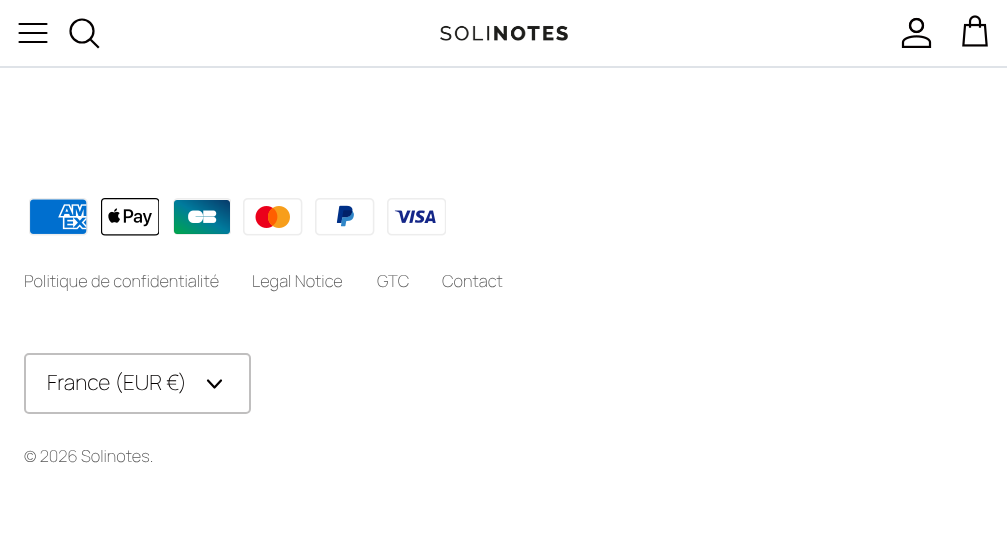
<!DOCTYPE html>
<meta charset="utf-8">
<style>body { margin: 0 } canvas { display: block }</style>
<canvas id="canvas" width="1007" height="557"></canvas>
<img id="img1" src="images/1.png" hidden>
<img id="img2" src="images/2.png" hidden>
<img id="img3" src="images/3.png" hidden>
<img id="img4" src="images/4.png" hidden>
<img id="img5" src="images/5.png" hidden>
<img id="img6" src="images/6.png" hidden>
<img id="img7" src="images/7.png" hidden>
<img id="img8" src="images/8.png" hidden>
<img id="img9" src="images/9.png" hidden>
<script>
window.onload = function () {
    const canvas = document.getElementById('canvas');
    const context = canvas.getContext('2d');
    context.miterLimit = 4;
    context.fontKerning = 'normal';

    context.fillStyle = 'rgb(255, 255, 255)';
    context.fillRect(0, 0, 1007, 557);
    context.fillStyle = 'rgb(223, 227, 232)';
    context.fillRect(0, 66, 1007, 2);
    context.beginPath();
    context.moveTo(19.5, 33);
    context.lineTo(46.5, 33);
    context.moveTo(19.5, 24);
    context.lineTo(46.5, 24);
    context.moveTo(19.5, 42);
    context.lineTo(46.5, 42);
    context.strokeStyle = 'rgb(4, 0, 0)';
    context.lineWidth = 2.2;
    context.lineCap = 'round';
    context.lineJoin = 'round';
    context.stroke();
    context.beginPath();
    context.arc(82, 31, 11.5, 0, 2 * Math.PI);
    context.stroke();
    context.beginPath();
    context.moveTo(91.5, 40.5);
    context.lineTo(98, 47);
    context.lineCap = 'square';
    context.lineJoin = 'miter';
    context.stroke();
    context.drawImage(document.getElementById('img1'), 440, 25, 128, 16);
    context.drawImage(document.getElementById('img2'), 901, 17, 31, 31);
    context.drawImage(document.getElementById('img3'), 962, 15, 26, 32);
    context.drawImage(document.getElementById('img4'), 29, 198, 59, 38);
    context.drawImage(document.getElementById('img5'), 101, 198, 58, 38);
    context.drawImage(document.getElementById('img6'), 173, 198, 58, 37);
    context.drawImage(document.getElementById('img7'), 243, 198, 60, 38);
    context.drawImage(document.getElementById('img8'), 315, 198, 60, 38);
    context.drawImage(document.getElementById('img9'), 387, 198, 59, 38);
    context.beginPath();
    context.roundRect(25, 354, 225, 59, 4);
    context.strokeStyle = 'rgb(192, 191, 191)';
    context.lineWidth = 2;
    context.stroke();
    context.beginPath();
    context.moveTo(208, 380.5);
    context.lineTo(214.5, 387.5);
    context.lineTo(221, 380.5);
    context.strokeStyle = 'rgb(4, 0, 0)';
    context.lineWidth = 2.2;
    context.lineCap = 'round';
    context.lineJoin = 'round';
    context.stroke();
    context.font = '200 16.5px Manrope';
    context.fillStyle = 'rgb(89, 89, 89)';
    context.fillText('Politique de confidentialité', 24, 287);
    context.fillText('Legal Notice', 252, 287);
    context.fillText('GTC', 377, 287);
    context.fillText('Contact', 442, 287);
    context.font = '200 21px Manrope';
    context.fillStyle = 'rgb(4, 0, 0)';
    context.fillText('France (EUR €)', 47, 390);
    context.font = '200 16.5px Manrope';
    context.fillStyle = 'rgb(89, 89, 89)';
    context.fillText('© 2026 Solinotes.', 24, 462);
};
</script>
